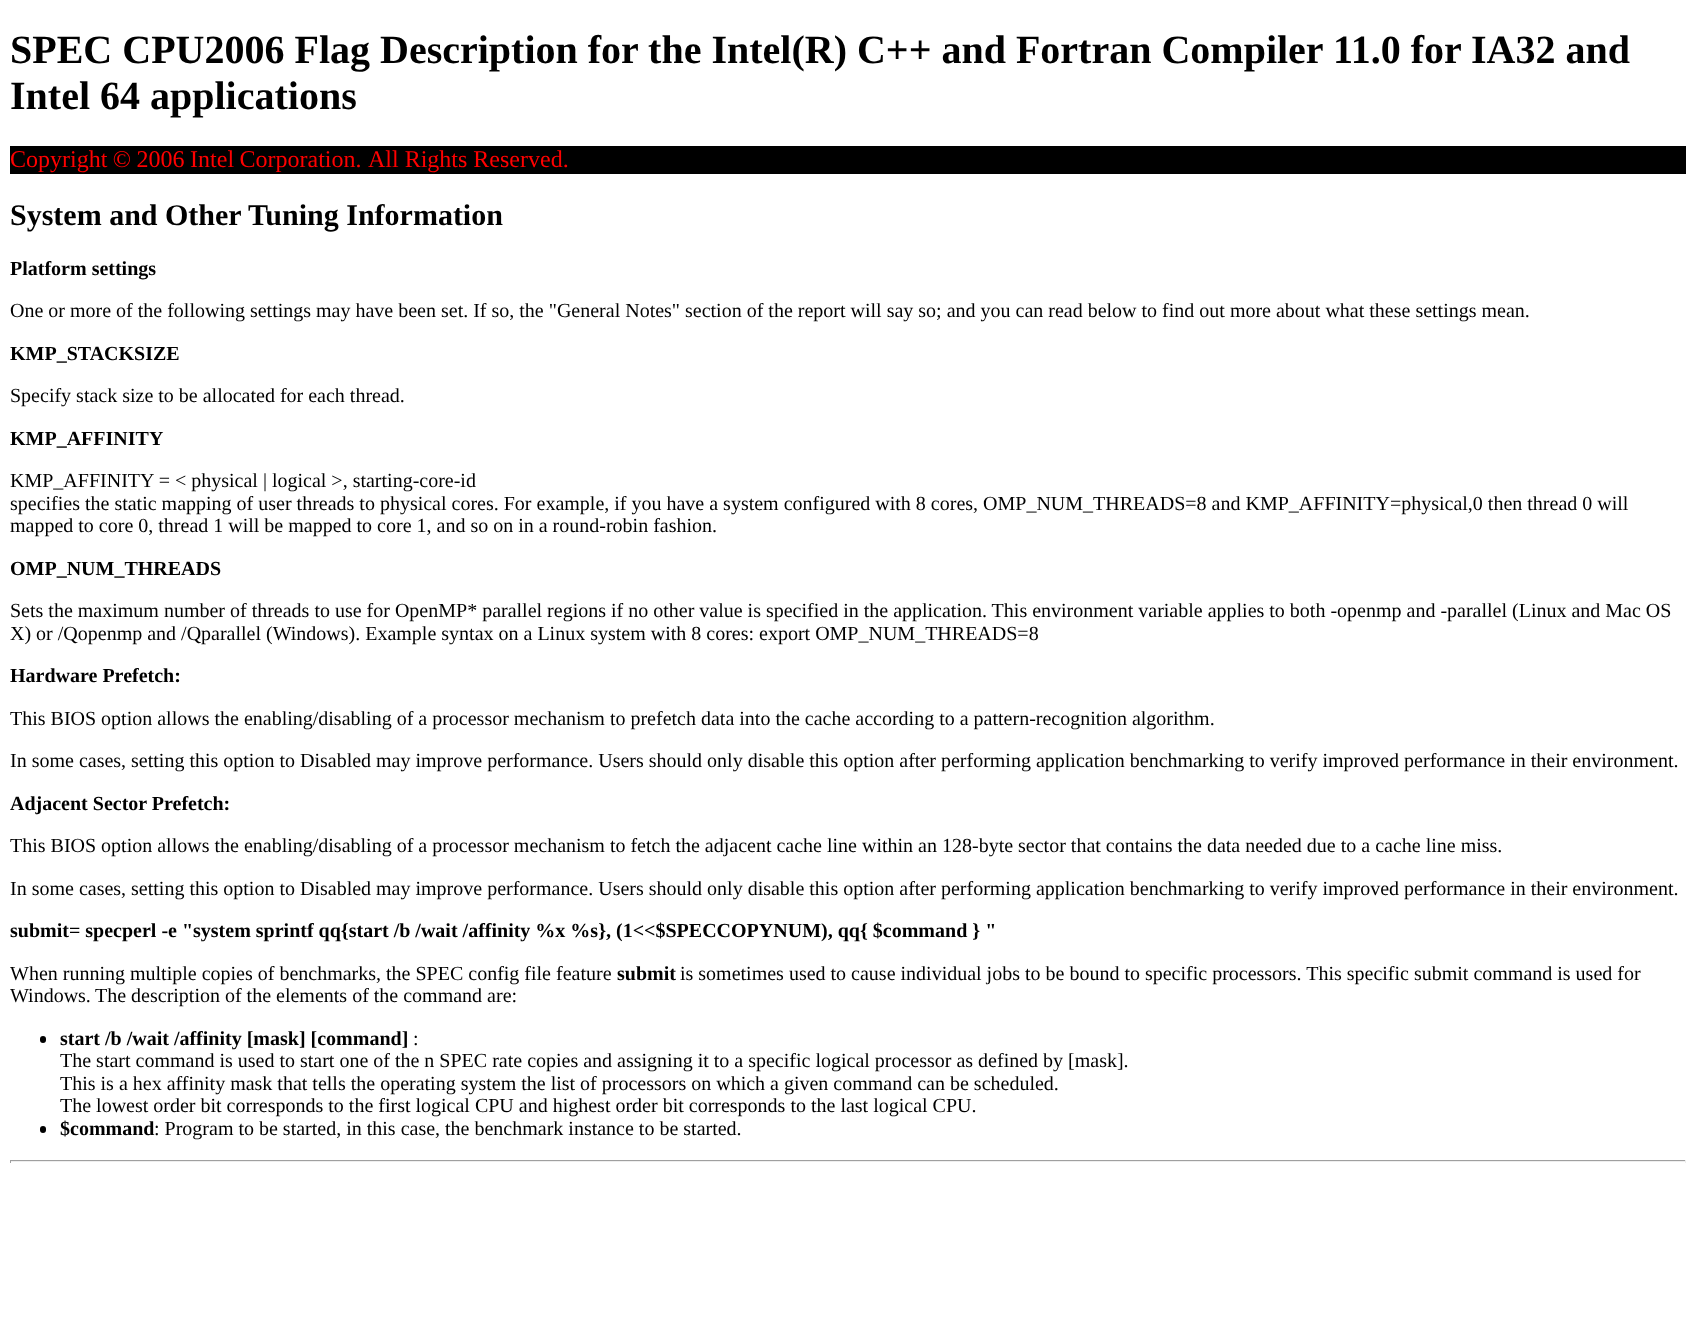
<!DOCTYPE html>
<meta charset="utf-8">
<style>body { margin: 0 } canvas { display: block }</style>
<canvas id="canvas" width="1696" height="1333"></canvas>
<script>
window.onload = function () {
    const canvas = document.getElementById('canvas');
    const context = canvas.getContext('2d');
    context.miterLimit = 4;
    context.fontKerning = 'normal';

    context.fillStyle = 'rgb(255, 255, 255)';
    context.fillRect(0, 0, 1696, 1333);
    context.fillStyle = 'rgb(0, 0, 0)';
    context.fillRect(10, 146, 1676, 28);
    context.beginPath();
    context.roundRect(40, 1036, 6, 7, 3);
    context.fill();
    context.beginPath();
    context.roundRect(40, 1126, 6, 7, 3);
    context.fill();
    context.fillStyle = 'rgb(159, 159, 159)';
    context.fillRect(10, 1160, 1676, 1);
    context.fillStyle = 'rgb(238, 238, 238)';
    context.fillRect(1685, 1160, 1, 3);
    context.fillRect(10, 1161, 1676, 1);
    context.fillStyle = 'rgb(159, 159, 159)';
    context.fillRect(10, 1160, 1, 3);
    context.font = 'bold 40px Liberation Serif';
    context.fillStyle = 'rgb(0, 0, 0)';
    context.fillText('SPEC CPU2006 Flag Description for the Intel(R) C++ and Fortran Compiler 11.0 for IA32 and', 10, 63);
    context.fillText('Intel 64 applications', 10, 109);
    context.wordSpacing = '-0.5px';
    context.font = '24px Liberation Serif';
    context.fillStyle = 'rgb(255, 0, 0)';
    context.fillText('Copyright © 2006 Intel Corporation.', 10, 167);
    context.wordSpacing = '0px';
    context.fillText('All Rights Reserved.', 368, 167);
    context.font = 'bold 30px Liberation Serif';
    context.fillStyle = 'rgb(0, 0, 0)';
    context.fillText('System and Other Tuning Information', 10, 225);
    context.font = 'bold 20px Liberation Serif';
    context.fillText('Platform settings', 10, 275);
    context.font = '20px Liberation Serif';
    context.fillText('One or more of the following settings may have been set. If so, the "General Notes" section of the report will say so; and you can read below to find out more about what these settings mean.', 10, 317);
    context.font = 'bold 20px Liberation Serif';
    context.fillText('KMP_STACKSIZE', 10, 360);
    context.font = '20px Liberation Serif';
    context.fillText('Specify stack size to be allocated for each thread.', 10, 402);
    context.font = 'bold 20px Liberation Serif';
    context.fillText('KMP_AFFINITY', 10, 445);
    context.font = '20px Liberation Serif';
    context.fillText('KMP_AFFINITY = < physical | logical >, starting-core-id', 10, 487);
    context.fillText('specifies the static mapping of user threads to physical cores. For example, if you have a system configured with 8 cores, OMP_NUM_THREADS=8 and KMP_AFFINITY=physical,0 then thread 0 will', 10, 510);
    context.fillText('mapped to core 0, thread 1 will be mapped to core 1, and so on in a round-robin fashion.', 10, 532);
    context.font = 'bold 20px Liberation Serif';
    context.fillText('OMP_NUM_THREADS', 10, 575);
    context.font = '20px Liberation Serif';
    context.fillText('Sets the maximum number of threads to use for OpenMP* parallel regions if no other value is specified in the application. This environment variable applies to both -openmp and -parallel (Linux and Mac OS', 10, 617);
    context.fillText('X) or /Qopenmp and /Qparallel (Windows). Example syntax on a Linux system with 8 cores: export OMP_NUM_THREADS=8', 10, 640);
    context.font = 'bold 20px Liberation Serif';
    context.fillText('Hardware Prefetch:', 10, 682);
    context.font = '20px Liberation Serif';
    context.fillText('This BIOS option allows the enabling/disabling of a processor mechanism to prefetch data into the cache according to a pattern-recognition algorithm.', 10, 725);
    context.fillText('In some cases, setting this option to Disabled may improve performance. Users should only disable this option after performing application benchmarking to verify improved performance in their environment.', 10, 767);
    context.font = 'bold 20px Liberation Serif';
    context.fillText('Adjacent Sector Prefetch:', 10, 810);
    context.font = '20px Liberation Serif';
    context.fillText('This BIOS option allows the enabling/disabling of a processor mechanism to fetch the adjacent cache line within an 128-byte sector that contains the data needed due to a cache line miss.', 10, 852);
    context.fillText('In some cases, setting this option to Disabled may improve performance. Users should only disable this option after performing application benchmarking to verify improved performance in their environment.', 10, 895);
    context.font = 'bold 20px Liberation Serif';
    context.fillText('submit= specperl -e "system sprintf qq{start /b /wait /affinity %x %s}, (1<<$SPECCOPYNUM), qq{ $command } "', 10, 937);
    context.font = '20px Liberation Serif';
    context.fillText('When running multiple copies of benchmarks, the SPEC config file feature', 10, 980);
    context.font = 'bold 20px Liberation Serif';
    context.fillText('submit', 617, 980);
    context.font = '20px Liberation Serif';
    context.fillText('is sometimes used to cause individual jobs to be bound to specific processors. This specific submit command is used for', 680, 980);
    context.fillText('Windows.', 10, 1002);
    context.fillText('The description of the elements of the command are:', 95, 1002);
    context.font = 'bold 20px Liberation Serif';
    context.fillText('start /b /wait /affinity [mask] [command]', 60, 1045);
    context.font = '20px Liberation Serif';
    context.fillText(':', 413, 1045);
    context.fillText('The start command is used to start one of the n SPEC rate copies and assigning it to a specific logical processor as defined by [mask].', 60, 1067);
    context.fillText('This is a hex affinity mask that tells the operating system the list of processors on which a given command can be scheduled.', 60, 1090);
    context.fillText('The lowest order bit corresponds to the first logical CPU and highest order bit corresponds to the last logical CPU.', 60, 1112);
    context.font = 'bold 20px Liberation Serif';
    context.fillText('$command', 60, 1135);
    context.font = '20px Liberation Serif';
    context.fillText(': Program to be started, in this case, the benchmark instance to be started.', 154, 1135);
};
</script>
